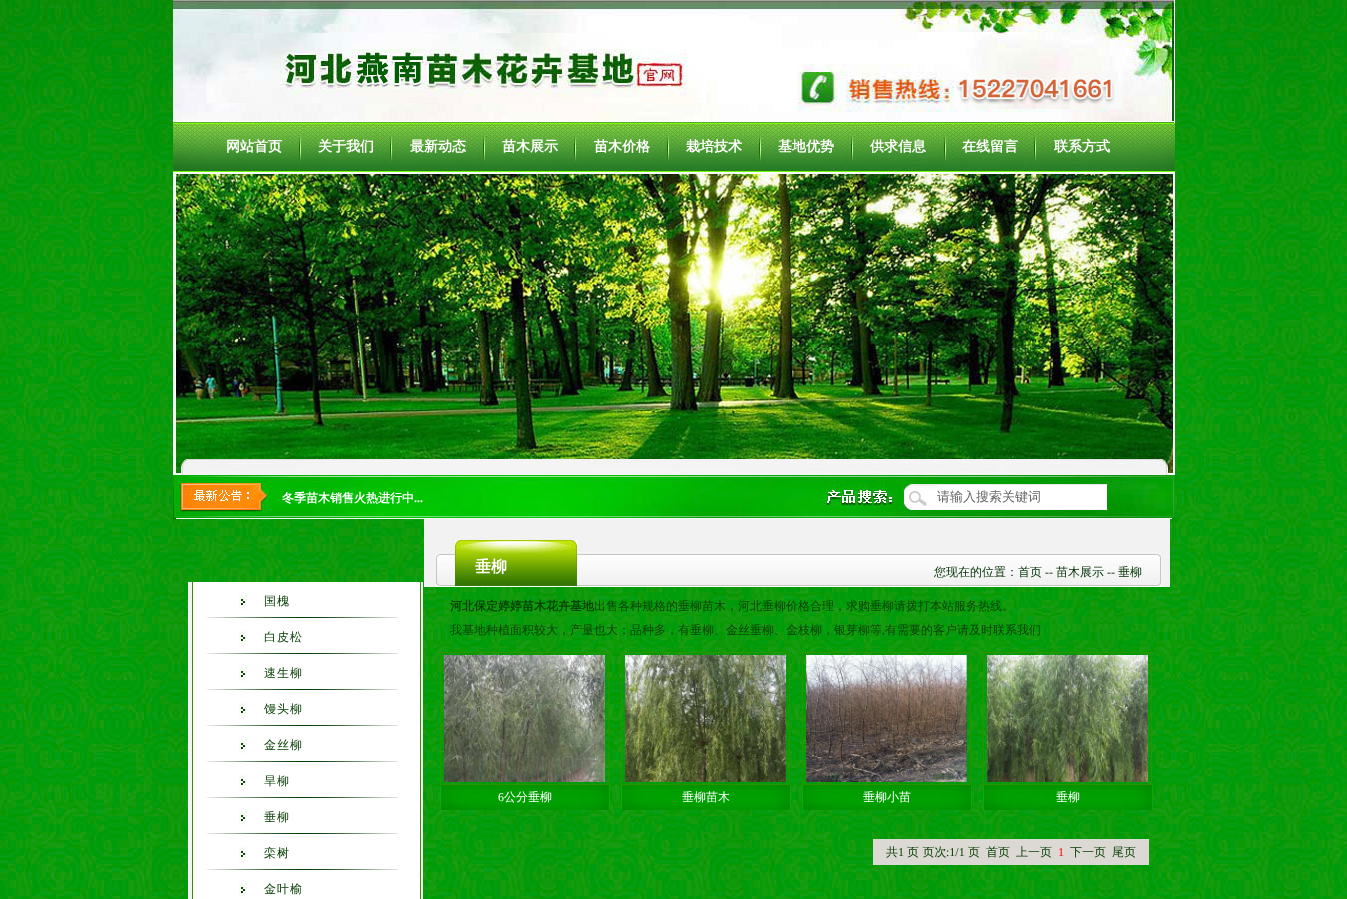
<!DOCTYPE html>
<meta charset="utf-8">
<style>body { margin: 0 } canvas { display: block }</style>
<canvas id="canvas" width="1347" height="899"></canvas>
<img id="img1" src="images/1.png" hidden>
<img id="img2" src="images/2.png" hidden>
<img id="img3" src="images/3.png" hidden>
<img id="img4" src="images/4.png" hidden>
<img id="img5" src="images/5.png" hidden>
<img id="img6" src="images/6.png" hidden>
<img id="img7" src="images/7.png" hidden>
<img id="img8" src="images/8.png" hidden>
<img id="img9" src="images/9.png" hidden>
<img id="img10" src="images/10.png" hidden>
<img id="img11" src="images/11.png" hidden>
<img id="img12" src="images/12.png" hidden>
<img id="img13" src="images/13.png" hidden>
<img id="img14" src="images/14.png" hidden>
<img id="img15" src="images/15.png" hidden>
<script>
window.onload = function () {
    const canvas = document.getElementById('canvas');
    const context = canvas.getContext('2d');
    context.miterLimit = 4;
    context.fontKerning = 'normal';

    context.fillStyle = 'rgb(255, 255, 255)';
    context.fillRect(0, 0, 1347, 899);
    context.drawImage(document.getElementById('img1'), 0, 0, 1347, 899);
    context.fillRect(173, 0, 1002, 122);
    context.drawImage(document.getElementById('img2'), 173, 0, 1001, 121);
    context.drawImage(document.getElementById('img3'), 207, 33, 499, 70);
    context.drawImage(document.getElementById('img4'), 173, 122, 1002, 49);
    context.drawImage(document.getElementById('img5'), 173, 171, 1002, 304);
    context.drawImage(document.getElementById('img6'), 173, 475, 1002, 44);
    context.fillRect(937, 485, 170, 24);
    context.drawImage(document.getElementById('img7'), 188, 582, 235, 317);
    context.drawImage(document.getElementById('img8'), 207, 593, 191, 25);
    context.drawImage(document.getElementById('img8'), 207, 629, 191, 25);
    context.drawImage(document.getElementById('img8'), 207, 665, 191, 25);
    context.drawImage(document.getElementById('img8'), 207, 701, 191, 25);
    context.drawImage(document.getElementById('img8'), 207, 737, 191, 25);
    context.drawImage(document.getElementById('img8'), 207, 773, 191, 25);
    context.drawImage(document.getElementById('img8'), 207, 809, 191, 25);
    context.drawImage(document.getElementById('img8'), 207, 845, 191, 25);
    context.drawImage(document.getElementById('img9'), 239, 881, 8, 16);
    context.drawImage(document.getElementById('img10'), 424, 519, 746, 68);
    context.strokeStyle = 'rgb(46, 145, 0)';
    context.strokeRect(440.5, 652.5, 168, 132);
    context.drawImage(document.getElementById('img11'), 444, 655, 161, 127);
    context.drawImage(document.getElementById('img12'), 440, 785, 170, 25);
    context.strokeRect(621.5, 652.5, 168, 132);
    context.drawImage(document.getElementById('img13'), 625, 655, 161, 127);
    context.drawImage(document.getElementById('img12'), 621, 785, 170, 25);
    context.strokeRect(802.5, 652.5, 168, 132);
    context.drawImage(document.getElementById('img14'), 806, 655, 161, 127);
    context.drawImage(document.getElementById('img12'), 802, 785, 170, 25);
    context.strokeRect(983.5, 652.5, 168, 132);
    context.drawImage(document.getElementById('img15'), 987, 655, 161, 127);
    context.drawImage(document.getElementById('img12'), 983, 785, 170, 25);
    context.fillStyle = 'rgb(220, 217, 212)';
    context.fillRect(873, 839, 276, 26);
    context.font = 'bold 14px WenQuanYi Zen Hei';
    context.fillStyle = 'rgb(255, 255, 255)';
    context.fillText('网站首页', 226, 151);
    context.fillText('关于我们', 318, 151);
    context.fillText('最新动态', 410, 151);
    context.fillText('苗木展示', 502, 151);
    context.fillText('苗木价格', 594, 151);
    context.fillText('栽培技术', 686, 151);
    context.fillText('基地优势', 778, 151);
    context.fillText('供求信息', 870, 151);
    context.fillText('在线留言', 962, 151);
    context.fillText('联系方式', 1054, 151);
    context.font = 'bold 12px WenQuanYi Zen Hei';
    context.fillText('冬季苗木销售火热进行中', 282, 502);
    context.font = 'bold 12px Liberation Serif';
    context.fillText('...', 414, 502);
    context.font = '500 13px WenQuanYi Zen Hei';
    context.fillStyle = 'rgb(101, 101, 101)';
    context.fillText('请输入搜索关键词', 937, 501);
    context.letterSpacing = '1px';
    context.font = '500 12px WenQuanYi Zen Hei';
    context.fillStyle = 'rgb(9, 64, 6)';
    context.fillText('国槐', 264, 605);
    context.fillText('白皮松', 264, 641);
    context.fillText('速生柳', 264, 677);
    context.fillText('馒头柳', 264, 713);
    context.fillText('金丝柳', 264, 749);
    context.fillText('旱柳', 264, 785);
    context.fillText('垂柳', 264, 821);
    context.fillText('栾树', 264, 857);
    context.fillText('金叶榆', 264, 893);
    context.letterSpacing = '0px';
    context.font = 'bold 16px WenQuanYi Zen Hei';
    context.fillStyle = 'rgb(255, 255, 255)';
    context.fillText('垂柳', 475, 572);
    context.font = '500 12px WenQuanYi Zen Hei';
    context.fillStyle = 'rgb(2, 49, 3)';
    context.fillText('您现在的位置：首页', 934, 576);
    context.font = '12px Liberation Serif';
    context.fillText('--', 1045, 576);
    context.font = '500 12px WenQuanYi Zen Hei';
    context.fillText('苗木展示', 1056, 576);
    context.font = '12px Liberation Serif';
    context.fillText('--', 1107, 576);
    context.font = '500 12px WenQuanYi Zen Hei';
    context.fillText('垂柳', 1118, 576);
    context.font = 'bold 12px WenQuanYi Zen Hei';
    context.fillStyle = 'rgb(9, 64, 6)';
    context.fillText('河北保定婷婷苗木花卉基地', 450, 610);
    context.font = '500 12px WenQuanYi Zen Hei';
    context.fillText('出售各种规格的垂柳苗木，河北垂柳价格合理，求购垂柳请拨打本站服务热线。', 594, 610);
    context.fillText('我基地种植面积较大，产量也大；品种多，有垂柳、金丝垂柳、金枝柳，银芽柳等', 450, 634);
    context.font = '12px Liberation Serif';
    context.fillText(',', 882, 634);
    context.font = '500 12px WenQuanYi Zen Hei';
    context.fillText('有需要的客户请及时联系我们', 885, 634);
    context.font = '12px Liberation Serif';
    context.fillStyle = 'rgb(255, 255, 255)';
    context.fillText('6', 498, 801);
    context.font = '500 12px WenQuanYi Zen Hei';
    context.fillText('公分垂柳', 504, 801);
    context.fillText('垂柳苗木', 682, 801);
    context.fillText('垂柳小苗', 863, 801);
    context.fillText('垂柳', 1056, 801);
    context.fillStyle = 'rgb(9, 64, 6)';
    context.fillText('共', 886, 856);
    context.font = '12px Liberation Serif';
    context.fillText('1', 898, 856);
    context.font = '500 12px WenQuanYi Zen Hei';
    context.fillText('页 页次', 907, 856);
    context.font = '12px Liberation Serif';
    context.fillText(':1/1', 946, 856);
    context.font = '500 12px WenQuanYi Zen Hei';
    context.fillText('页', 968, 856);
    context.fillText('首页', 986, 856);
    context.fillText('上一页', 1016, 856);
    context.font = '12px Liberation Serif';
    context.fillStyle = 'rgb(255, 0, 0)';
    context.fillText('1', 1058, 856);
    context.font = '500 12px WenQuanYi Zen Hei';
    context.fillStyle = 'rgb(9, 64, 6)';
    context.fillText('下一页', 1070, 856);
    context.fillText('尾页', 1112, 856);
};
</script>
